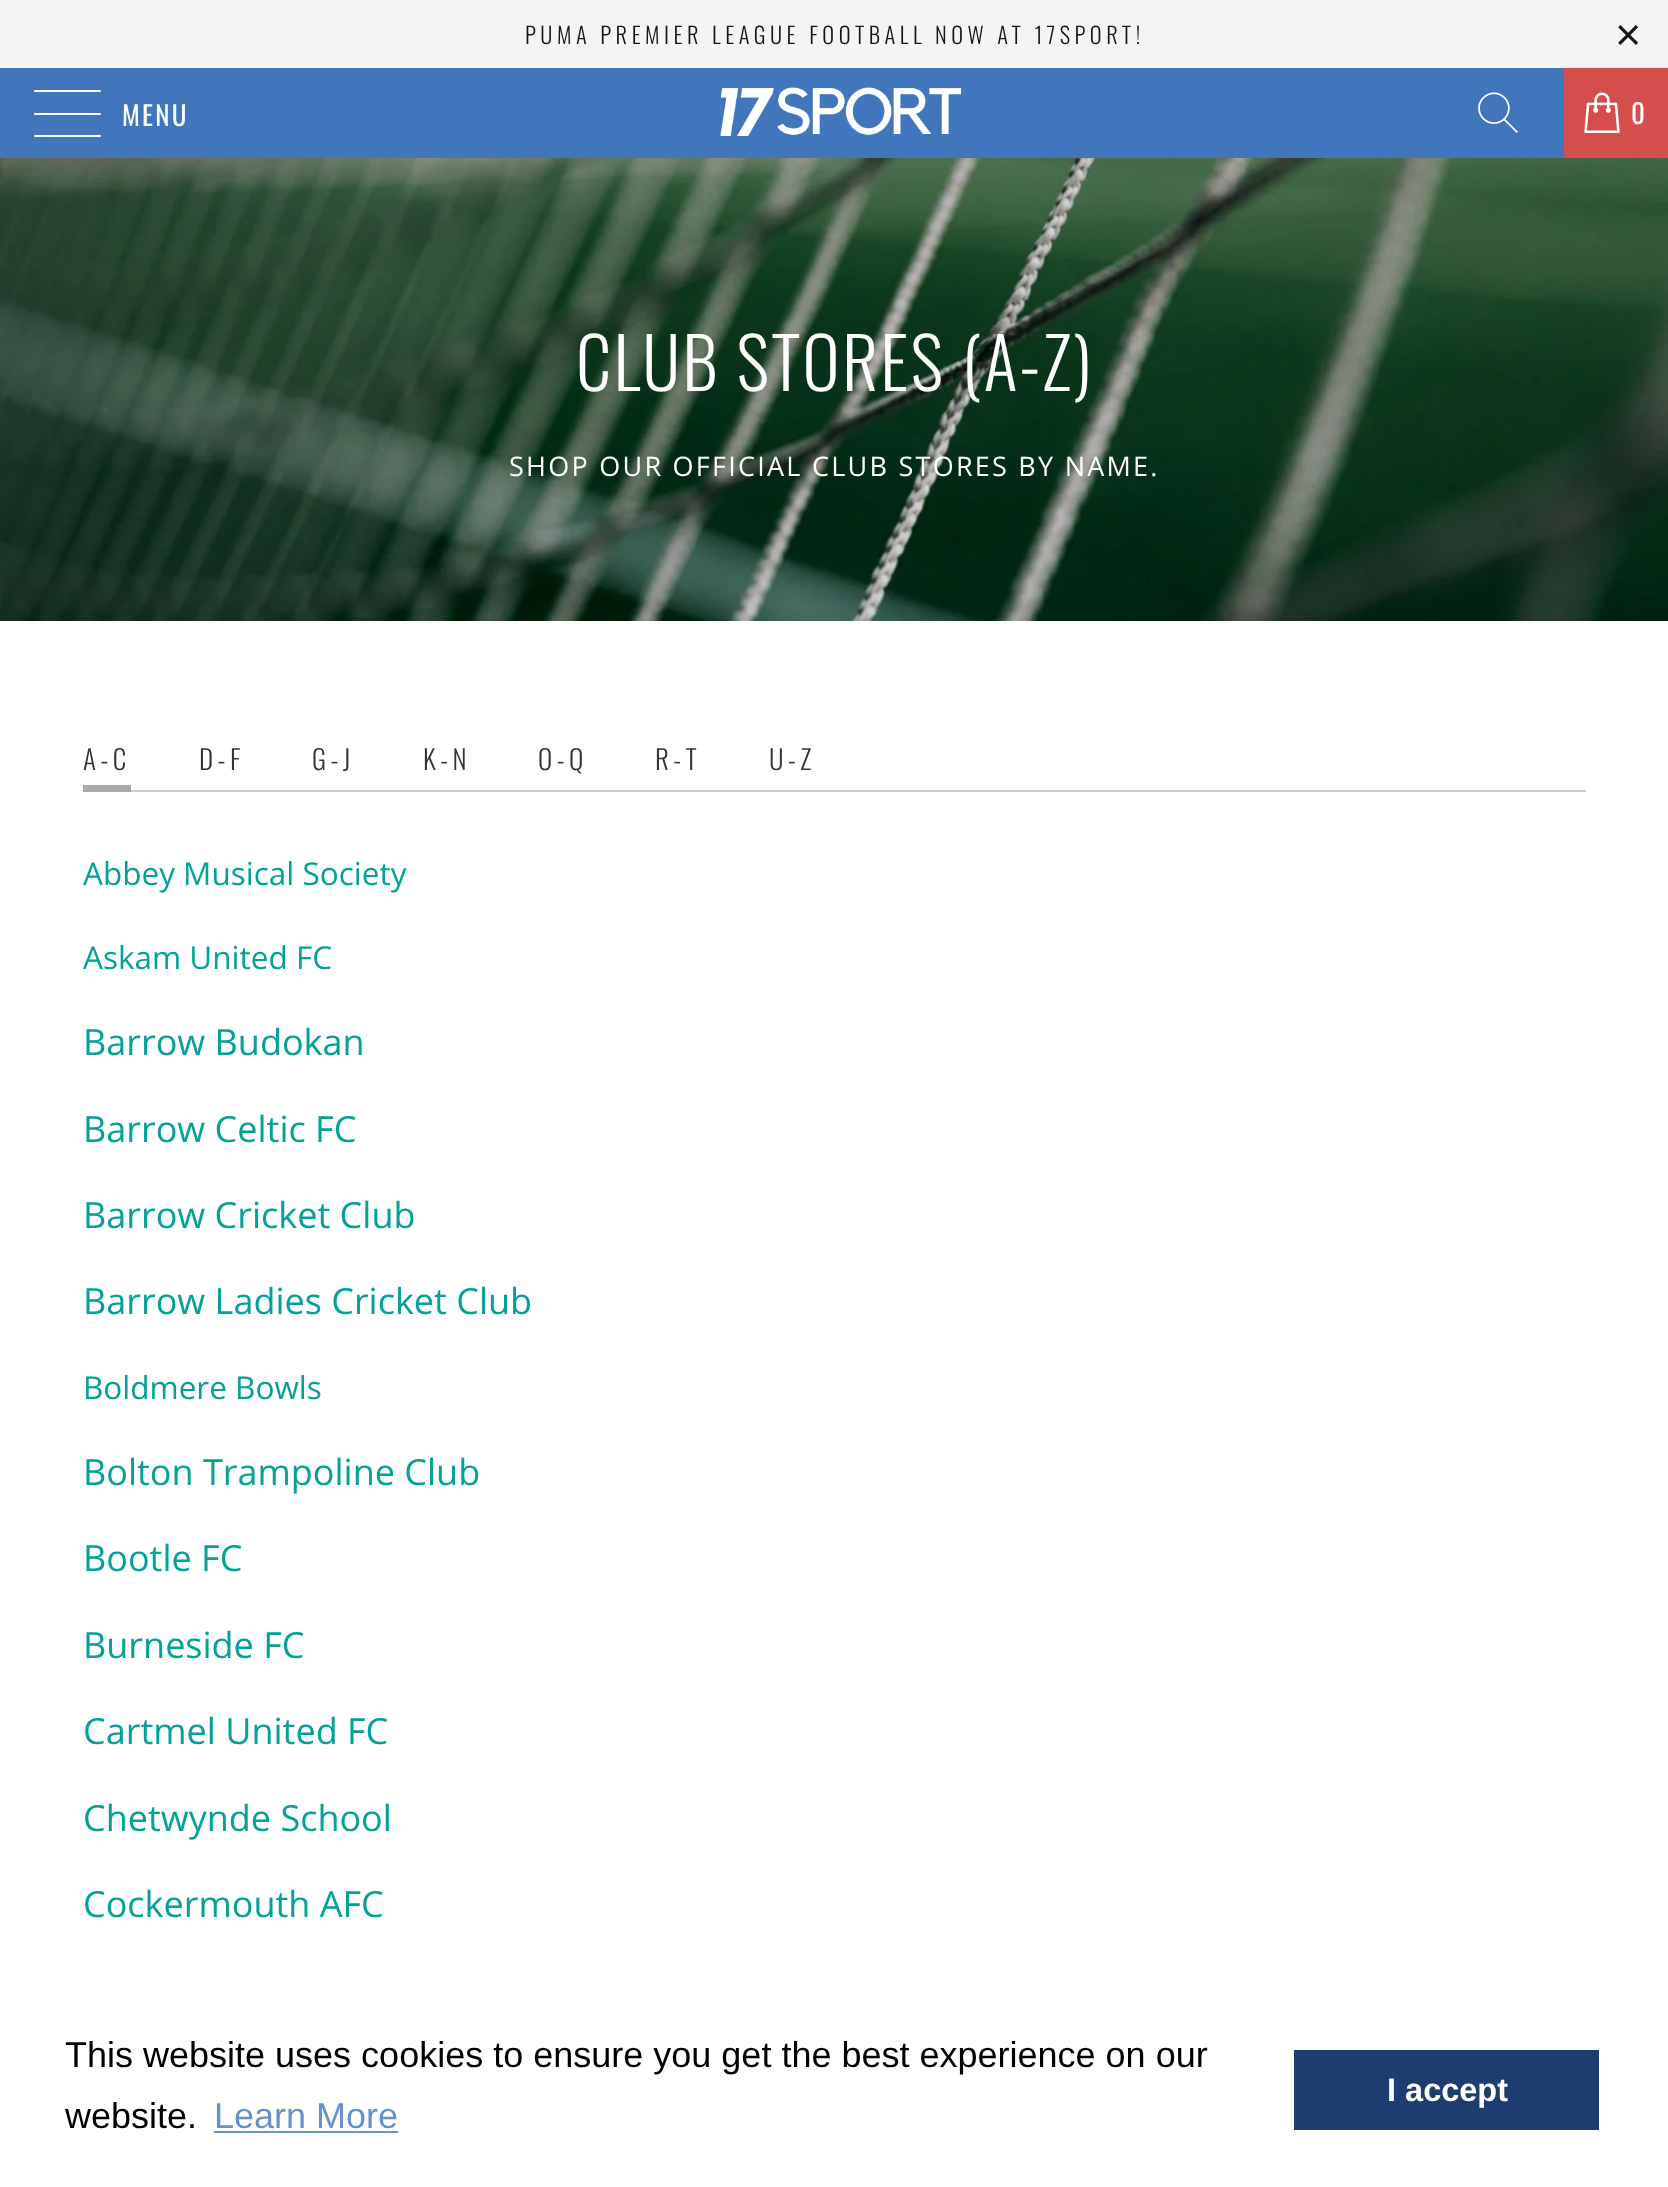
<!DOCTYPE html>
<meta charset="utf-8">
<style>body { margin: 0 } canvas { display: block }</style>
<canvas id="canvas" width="1668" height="2187"></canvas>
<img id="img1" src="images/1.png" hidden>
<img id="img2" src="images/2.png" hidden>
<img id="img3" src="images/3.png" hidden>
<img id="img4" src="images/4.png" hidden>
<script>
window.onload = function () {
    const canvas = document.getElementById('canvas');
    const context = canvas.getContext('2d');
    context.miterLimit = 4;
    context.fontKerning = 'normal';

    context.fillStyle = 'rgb(255, 255, 255)';
    context.fillRect(0, 0, 1668, 2187);
    context.fillStyle = 'rgb(244, 244, 244)';
    context.fillRect(0, 0, 1668, 68);
    context.fillStyle = 'rgb(65, 118, 188)';
    context.fillRect(0, 68, 1564, 90);
    context.fillStyle = 'rgb(255, 255, 255)';
    context.beginPath();
    context.roundRect(34, 90, 67, 2, 1);
    context.fill();
    context.beginPath();
    context.roundRect(34, 113, 67, 2, 1);
    context.fill();
    context.beginPath();
    context.roundRect(34, 135, 67, 2, 1);
    context.fill();
    context.drawImage(document.getElementById('img1'), 720, 87, 242, 49);
    context.drawImage(document.getElementById('img2'), 1478, 92, 40, 41);
    context.fillStyle = 'rgb(213, 77, 77)';
    context.fillRect(1564, 68, 104, 90);
    context.drawImage(document.getElementById('img3'), 1584, 92, 36, 41);
    context.drawImage(document.getElementById('img4'), 0, 158, 1668, 463);
    context.fillStyle = 'rgb(204, 204, 204)';
    context.fillRect(131, 790, 1455, 2);
    context.fillStyle = 'rgb(170, 170, 170)';
    context.fillRect(83, 785, 48, 7);
    context.fillStyle = 'rgb(103, 145, 201)';
    context.fillRect(214, 2131, 184, 2);
    context.fillStyle = 'rgb(29, 61, 112)';
    context.fillRect(1294, 2050, 305, 80);
    context.letterSpacing = '4.5px';
    context.font = '300 22.5px Oswald';
    context.fillStyle = 'rgb(21, 21, 21)';
    context.fillText('PUMA PREMIER LEAGUE FOOTBALL NOW AT 17SPORT!', 525, 44);
    context.font = '45px Liberation Sans';
    context.fillText('×', 1615, 50);
    context.letterSpacing = '2.25px';
    context.font = '27px Oswald';
    context.fillStyle = 'rgb(255, 255, 255)';
    context.fillText('MENU', 122, 126);
    context.fillText('0', 1631, 124);
    context.font = '300 70.5px Oswald';
    context.fillText('CLUB STORES (A-Z)', 576, 391);
    context.font = '27px Open Sans';
    context.fillText('SHOP OUR OFFICIAL CLUB STORES BY NAME.', 509, 476);
    context.letterSpacing = '4.5px';
    context.font = '300 27px Oswald';
    context.fillStyle = 'rgb(51, 51, 51)';
    context.fillText('A-C', 83, 770);
    context.fillText('D-F', 199, 770);
    context.fillText('G-J', 312, 770);
    context.fillText('K-N', 423, 770);
    context.fillText('O-Q', 538, 770);
    context.fillText('R-T', 655, 770);
    context.fillText('U-Z', 769, 770);
    context.letterSpacing = '0px';
    context.font = '31.5px Open Sans';
    context.fillStyle = 'rgb(3, 161, 150)';
    context.fillText('Abbey Musical Society', 83, 885);
    context.fillText('Askam United FC', 83, 969);
    context.font = '36px Open Sans';
    context.fillText('Barrow Budokan', 83, 1055);
    context.fillText('Barrow Celtic FC', 83, 1142);
    context.fillText('Barrow Cricket Club', 83, 1228);
    context.fillText('Barrow Ladies Cricket Club', 83, 1314);
    context.font = '31.5px Open Sans';
    context.fillText('Boldmere Bowls', 83, 1399);
    context.font = '36px Open Sans';
    context.fillText('Bolton Trampoline Club', 83, 1485);
    context.fillText('Bootle FC', 83, 1571);
    context.fillText('Burneside FC', 83, 1658);
    context.fillText('Cartmel United FC', 83, 1744);
    context.fillText('Chetwynde School', 83, 1831);
    context.fillText('Cockermouth AFC', 83, 1917);
    context.font = '36px Liberation Sans';
    context.fillStyle = 'rgb(0, 0, 0)';
    context.fillText('This website uses cookies to ensure you get the best experience on our', 65, 2067);
    context.fillText('website.', 65, 2128);
    context.fillStyle = 'rgb(103, 145, 201)';
    context.fillText('Learn More', 214, 2128);
    context.font = 'bold 32.5px Liberation Sans';
    context.fillStyle = 'rgb(255, 255, 255)';
    context.fillText('I accept', 1387, 2101);
};
</script>
